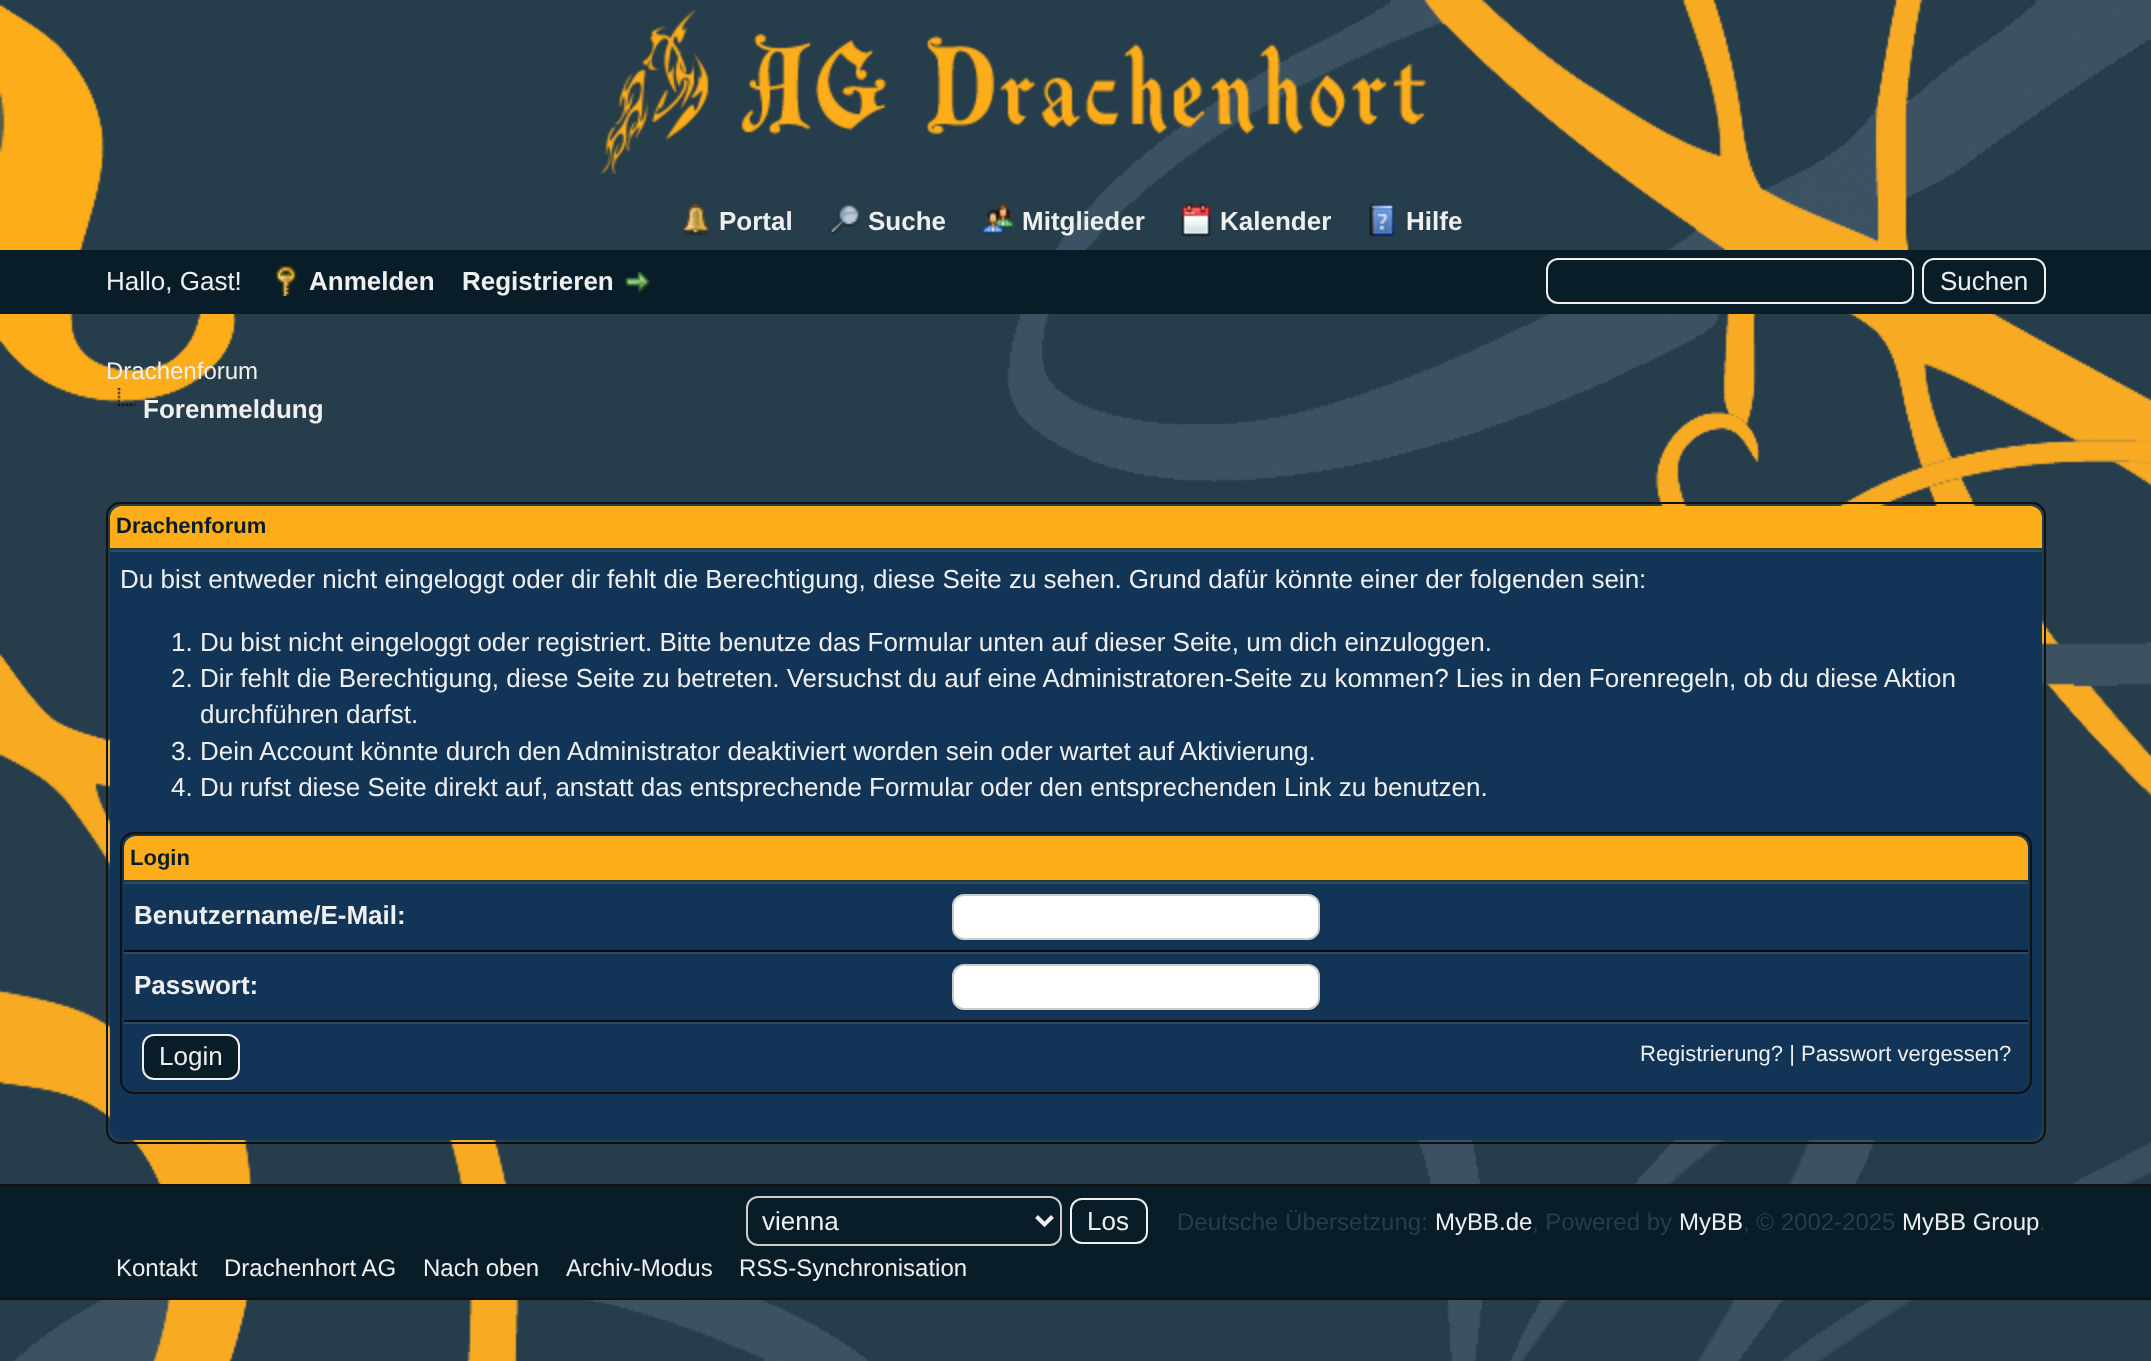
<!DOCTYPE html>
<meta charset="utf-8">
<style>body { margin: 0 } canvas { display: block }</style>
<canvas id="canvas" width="2151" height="1361"></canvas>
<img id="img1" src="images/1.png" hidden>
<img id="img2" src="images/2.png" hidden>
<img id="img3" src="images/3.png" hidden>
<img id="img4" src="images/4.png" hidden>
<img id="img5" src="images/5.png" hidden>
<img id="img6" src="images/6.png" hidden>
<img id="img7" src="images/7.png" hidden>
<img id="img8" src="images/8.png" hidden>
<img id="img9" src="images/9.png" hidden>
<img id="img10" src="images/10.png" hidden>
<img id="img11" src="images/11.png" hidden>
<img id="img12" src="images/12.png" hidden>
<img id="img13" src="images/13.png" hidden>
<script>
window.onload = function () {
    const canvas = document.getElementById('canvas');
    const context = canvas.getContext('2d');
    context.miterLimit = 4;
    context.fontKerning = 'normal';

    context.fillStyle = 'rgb(38, 61, 75)';
    context.fillRect(0, 0, 2151, 1361);
    context.drawImage(document.getElementById('img1'), 0, 3, 237, 400);
    context.drawImage(document.getElementById('img2'), 1007, 0, 1144, 797);
    context.drawImage(document.getElementById('img3'), 599, 10, 828, 164);
    context.drawImage(document.getElementById('img4'), 681, 204, 30, 32);
    context.drawImage(document.getElementById('img5'), 829, 204, 31, 30);
    context.drawImage(document.getElementById('img6'), 982, 204, 32, 31);
    context.drawImage(document.getElementById('img7'), 1181, 204, 30, 33);
    context.drawImage(document.getElementById('img8'), 1369, 204, 26, 33);
    context.fillStyle = 'rgb(9, 29, 40)';
    context.fillRect(0, 250, 2151, 64);
    context.drawImage(document.getElementById('img9'), 275, 266, 22, 30);
    context.drawImage(document.getElementById('img10'), 625, 271, 26, 22);
    context.beginPath();
    context.roundRect(1547, 259, 366, 44, 11);
    context.strokeStyle = 'rgb(239, 239, 239)';
    context.lineWidth = 2;
    context.stroke();
    context.beginPath();
    context.roundRect(1923, 259, 122, 44, 11);
    context.stroke();
    context.drawImage(document.getElementById('img11'), 117, 388, 19, 19);
    context.drawImage(document.getElementById('img12'), 0, 653, 869, 708);
    context.drawImage(document.getElementById('img13'), 1416, 411, 735, 950);
    context.beginPath();
    context.roundRect(107, 503, 1938, 640, 13);
    context.strokeStyle = 'rgb(17, 17, 17)';
    context.stroke();
    context.fillStyle = 'rgb(253, 173, 26)';
    context.beginPath();
    context.roundRect(110, 506, 1932, 44, [12, 12, 0, 0]);
    context.fill();
    context.fillStyle = 'rgb(38, 60, 48)';
    context.fillRect(110, 548, 1932, 2);
    context.fillStyle = 'rgb(18, 52, 86)';
    context.beginPath();
    context.roundRect(110, 550, 1932, 590, [0, 0, 12, 12]);
    context.fill();
    context.fillStyle = 'rgb(44, 74, 105)';
    context.fillRect(110, 550, 1932, 2);
    context.beginPath();
    context.roundRect(121, 833, 1910, 260, 13);
    context.stroke();
    context.fillStyle = 'rgb(253, 173, 26)';
    context.beginPath();
    context.roundRect(124, 836, 1904, 46, [12, 12, 0, 0]);
    context.fill();
    context.fillStyle = 'rgb(38, 60, 48)';
    context.fillRect(124, 880, 1904, 2);
    context.fillStyle = 'rgb(44, 74, 105)';
    context.fillRect(124, 882, 1904, 2);
    context.fillStyle = 'rgb(10, 10, 10)';
    context.fillRect(124, 950, 1904, 2);
    context.fillStyle = 'rgb(255, 255, 255)';
    context.beginPath();
    context.roundRect(953, 895, 366, 44, 11);
    context.fill();
    context.strokeStyle = 'rgb(204, 204, 204)';
    context.stroke();
    context.fillStyle = 'rgb(44, 74, 105)';
    context.fillRect(124, 952, 1904, 2);
    context.fillStyle = 'rgb(10, 10, 10)';
    context.fillRect(124, 1020, 1904, 2);
    context.fillStyle = 'rgb(255, 255, 255)';
    context.beginPath();
    context.roundRect(953, 965, 366, 44, 11);
    context.fill();
    context.stroke();
    context.fillStyle = 'rgb(44, 74, 105)';
    context.fillRect(124, 1022, 1904, 2);
    context.fillStyle = 'rgb(9, 29, 40)';
    context.beginPath();
    context.roundRect(143, 1035, 96, 44, 11);
    context.fill();
    context.strokeStyle = 'rgb(239, 239, 239)';
    context.stroke();
    context.fillRect(0, 1186, 2151, 112);
    context.fillStyle = 'rgb(17, 17, 17)';
    context.fillRect(0, 1184, 2151, 2);
    context.fillRect(0, 1298, 2151, 2);
    context.beginPath();
    context.roundRect(747, 1197, 314, 48, 11);
    context.strokeStyle = 'rgb(204, 204, 204)';
    context.stroke();
    context.beginPath();
    context.moveTo(1036.5, 1216.5);
    context.lineTo(1044.5, 1224.5);
    context.lineTo(1052.5, 1216.5);
    context.strokeStyle = 'rgb(239, 239, 239)';
    context.lineWidth = 4;
    context.stroke();
    context.beginPath();
    context.roundRect(1071, 1199, 76, 44, 11);
    context.lineWidth = 2;
    context.stroke();
    context.font = 'bold 26px Liberation Sans';
    context.fillStyle = 'rgb(239, 239, 239)';
    context.fillText('Portal', 719, 230);
    context.fillText('Suche', 868, 230);
    context.fillText('Mitglieder', 1022, 230);
    context.fillText('Kalender', 1220, 230);
    context.fillText('Hilfe', 1406, 230);
    context.font = '26px Liberation Sans';
    context.fillText('Hallo, Gast!', 106, 290);
    context.font = 'bold 26px Liberation Sans';
    context.fillText('Anmelden', 309, 290);
    context.fillText('Registrieren', 462, 290);
    context.font = '26px Liberation Sans';
    context.fillText('Suchen', 1940, 290);
    context.font = '24px Liberation Sans';
    context.fillText('Drachenforum', 106, 379);
    context.font = 'bold 26px Liberation Sans';
    context.fillText('Forenmeldung', 143, 418);
    context.font = 'bold 22px Liberation Sans';
    context.fillStyle = 'rgb(9, 29, 40)';
    context.fillText('Drachenforum', 116, 533);
    context.font = '26px Liberation Sans';
    context.fillStyle = 'rgb(239, 239, 239)';
    context.fillText('Du bist entweder nicht eingeloggt oder dir fehlt die Berechtigung, diese Seite zu sehen. Grund dafür könnte einer der folgenden sein:', 120, 588);
    context.fillText('1. Du bist nicht eingeloggt oder registriert. Bitte benutze das Formular unten auf dieser Seite, um dich einzuloggen.', 171, 651);
    context.fillText('2. Dir fehlt die Berechtigung, diese Seite zu betreten. Versuchst du auf eine Administratoren-Seite zu kommen? Lies in den Forenregeln, ob du diese Aktion', 171, 687);
    context.fillText('durchführen darfst.', 200, 723);
    context.fillText('3. Dein Account könnte durch den Administrator deaktiviert worden sein oder wartet auf Aktivierung.', 171, 760);
    context.fillText('4. Du rufst diese Seite direkt auf, anstatt das entsprechende Formular oder den entsprechenden Link zu benutzen.', 171, 796);
    context.font = 'bold 22px Liberation Sans';
    context.fillStyle = 'rgb(9, 29, 40)';
    context.fillText('Login', 130, 865);
    context.font = 'bold 26px Liberation Sans';
    context.fillStyle = 'rgb(239, 239, 239)';
    context.fillText('Benutzername/E-Mail:', 134, 924);
    context.fillText('Passwort:', 134, 994);
    context.font = '26px Liberation Sans';
    context.fillText('Login', 159, 1065);
    context.font = '22px Liberation Sans';
    context.fillText('Registrierung? | Passwort vergessen?', 1640, 1061);
    context.font = '26px Liberation Sans';
    context.fillText('vienna', 762, 1230);
    context.fillText('Los', 1087, 1230);
    context.font = '24px Liberation Sans';
    context.fillStyle = 'rgb(38, 61, 75)';
    context.fillText('Deutsche Übersetzung:', 1177, 1230);
    context.fillStyle = 'rgb(239, 239, 239)';
    context.fillText('MyBB.de', 1435, 1230);
    context.fillStyle = 'rgb(38, 61, 75)';
    context.fillText(', Powered by', 1532, 1230);
    context.fillStyle = 'rgb(239, 239, 239)';
    context.fillText('MyBB', 1679, 1230);
    context.fillStyle = 'rgb(38, 61, 75)';
    context.fillText(', © 2002-2025', 1743, 1230);
    context.fillStyle = 'rgb(239, 239, 239)';
    context.fillText('MyBB Group', 1902, 1230);
    context.fillStyle = 'rgb(38, 61, 75)';
    context.fillText('.', 2039, 1230);
    context.fillStyle = 'rgb(239, 239, 239)';
    context.fillText('Kontakt', 116, 1276);
    context.fillText('Drachenhort AG', 224, 1276);
    context.fillText('Nach oben', 423, 1276);
    context.fillText('Archiv-Modus', 566, 1276);
    context.fillText('RSS-Synchronisation', 739, 1276);
};
</script>
